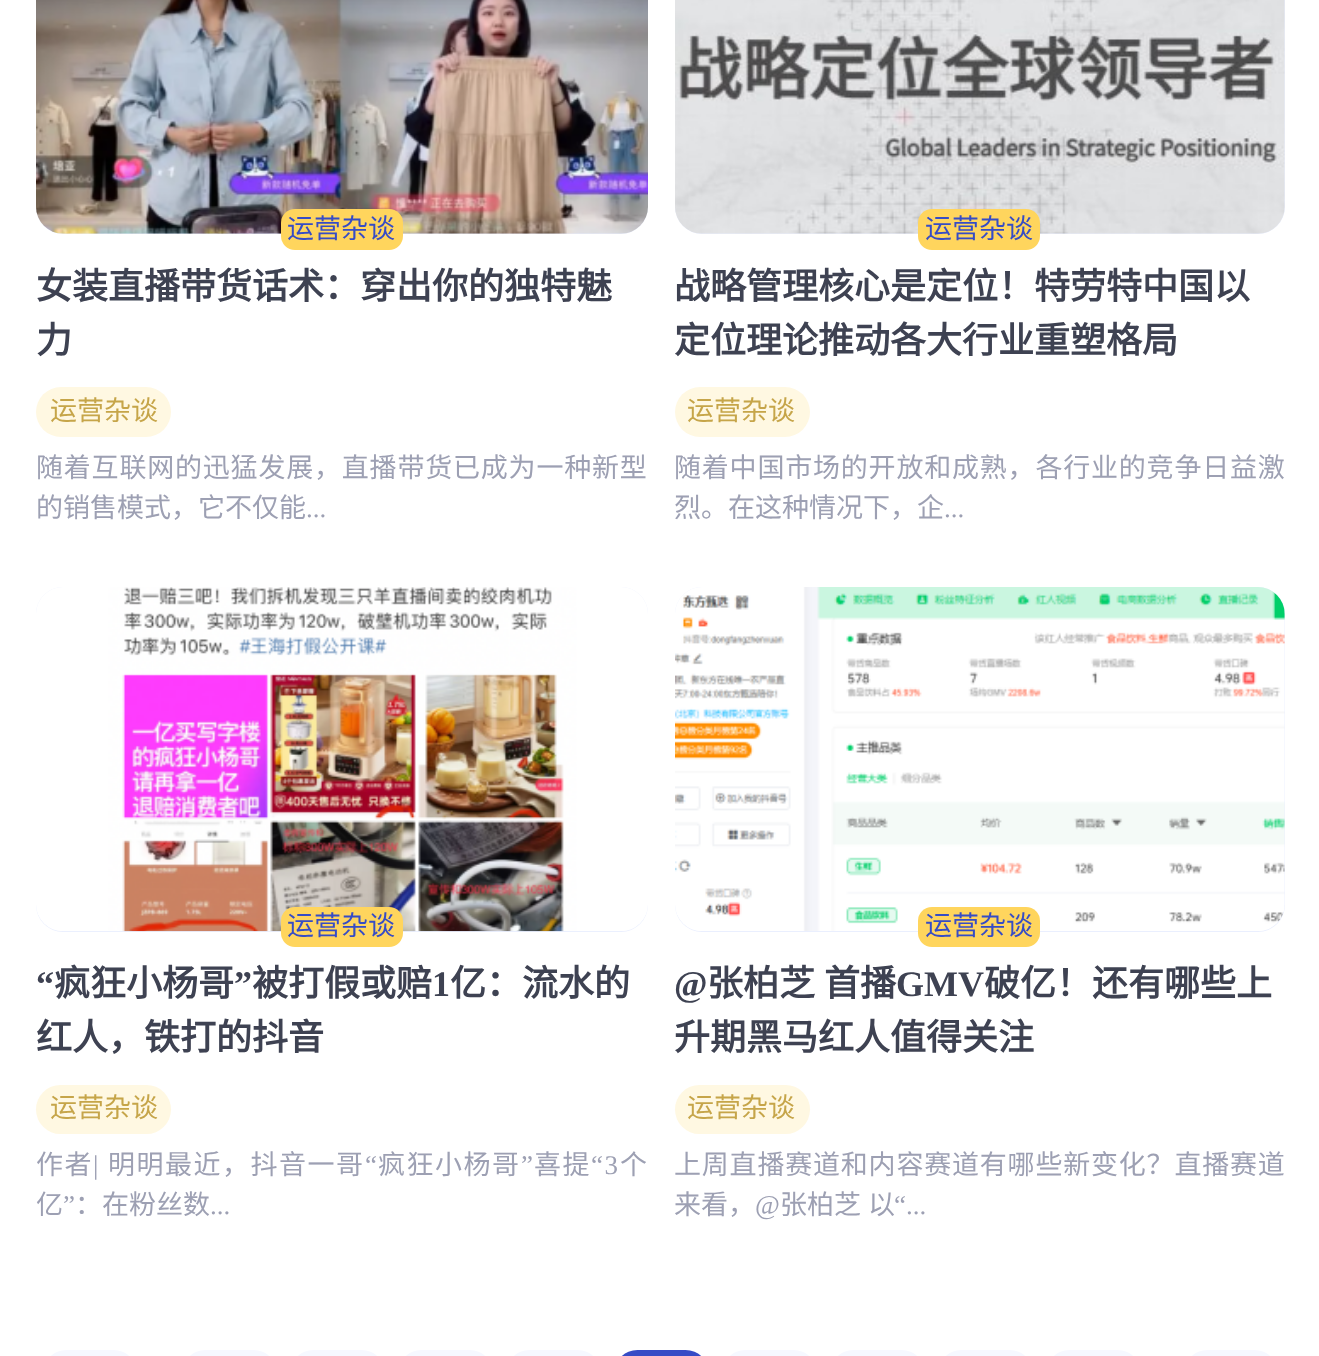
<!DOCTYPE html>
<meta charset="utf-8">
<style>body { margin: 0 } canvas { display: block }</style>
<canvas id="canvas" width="1319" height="1356"></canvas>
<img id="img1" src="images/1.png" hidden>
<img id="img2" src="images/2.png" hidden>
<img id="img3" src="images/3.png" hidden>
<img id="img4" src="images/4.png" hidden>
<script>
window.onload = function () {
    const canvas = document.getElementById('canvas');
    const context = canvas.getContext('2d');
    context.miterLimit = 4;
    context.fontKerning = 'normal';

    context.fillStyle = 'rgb(255, 255, 255)';
    context.fillRect(0, 0, 1319, 1356);
    context.fillStyle = 'rgb(234, 239, 254)';
    context.beginPath();
    context.roundRect(36, -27, 612, 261, 27);
    context.fill();
    context.drawImage(document.getElementById('img1'), 36, 0, 612, 234);
    context.fillStyle = 'rgb(255, 213, 93)';
    context.beginPath();
    context.roundRect(281, 209, 122, 41, 14);
    context.fill();
    context.fillStyle = 'rgb(255, 248, 226)';
    context.beginPath();
    context.roundRect(36, 387, 135, 50, 25);
    context.fill();
    context.fillStyle = 'rgb(234, 239, 254)';
    context.beginPath();
    context.roundRect(675, -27, 610, 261, 27);
    context.fill();
    context.drawImage(document.getElementById('img2'), 675, 0, 610, 234);
    context.fillStyle = 'rgb(255, 213, 93)';
    context.beginPath();
    context.roundRect(918, 209, 122, 41, 14);
    context.fill();
    context.fillStyle = 'rgb(255, 248, 226)';
    context.beginPath();
    context.roundRect(675, 387, 135, 50, 25);
    context.fill();
    context.fillStyle = 'rgb(234, 239, 254)';
    context.beginPath();
    context.roundRect(36, 587, 612, 345, 27);
    context.fill();
    context.drawImage(document.getElementById('img3'), 36, 587, 612, 345);
    context.fillStyle = 'rgb(255, 213, 93)';
    context.beginPath();
    context.roundRect(281, 907, 122, 40, 14);
    context.fill();
    context.fillStyle = 'rgb(255, 248, 226)';
    context.beginPath();
    context.roundRect(36, 1085, 135, 49, 24.5);
    context.fill();
    context.fillStyle = 'rgb(234, 239, 254)';
    context.beginPath();
    context.roundRect(675, 587, 610, 345, 27);
    context.fill();
    context.drawImage(document.getElementById('img4'), 675, 587, 610, 344);
    context.fillStyle = 'rgb(255, 213, 93)';
    context.beginPath();
    context.roundRect(918, 907, 122, 40, 14);
    context.fill();
    context.fillStyle = 'rgb(255, 248, 226)';
    context.beginPath();
    context.roundRect(675, 1085, 135, 49, 24.5);
    context.fill();
    context.fillStyle = 'rgb(246, 248, 255)';
    context.beginPath();
    context.roundRect(43, 1350, 94, 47, 40.5);
    context.fill();
    context.beginPath();
    context.roundRect(182, 1350, 95, 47, 40.5);
    context.fill();
    context.beginPath();
    context.roundRect(290, 1350, 95, 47, 40.5);
    context.fill();
    context.beginPath();
    context.roundRect(398, 1350, 95, 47, 40.5);
    context.fill();
    context.beginPath();
    context.roundRect(506, 1350, 95, 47, 40.5);
    context.fill();
    context.fillStyle = 'rgb(54, 76, 198)';
    context.beginPath();
    context.roundRect(614, 1350, 95, 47, 40.5);
    context.fill();
    context.fillStyle = 'rgb(246, 248, 255)';
    context.beginPath();
    context.roundRect(722, 1350, 95, 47, 40.5);
    context.fill();
    context.beginPath();
    context.roundRect(830, 1350, 95, 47, 40.5);
    context.fill();
    context.beginPath();
    context.roundRect(938, 1350, 95, 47, 40.5);
    context.fill();
    context.beginPath();
    context.roundRect(1046, 1350, 95, 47, 40.5);
    context.fill();
    context.beginPath();
    context.roundRect(1184, 1350, 94, 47, 40.5);
    context.fill();
    context.font = '27px Noto Sans CJK SC';
    context.fillStyle = 'rgb(54, 76, 198)';
    context.fillText('运营杂谈', 287, 238);
    context.font = 'bold 36px Noto Sans CJK SC';
    context.fillStyle = 'rgb(62, 66, 82)';
    context.fillText('女装直播带货话术：穿出你的独特魅', 36, 299);
    context.fillText('力', 36, 353);
    context.font = '27px Noto Sans CJK SC';
    context.fillStyle = 'rgb(198, 165, 73)';
    context.fillText('运营杂谈', 50, 420);
    context.letterSpacing = '0.8px';
    context.fillStyle = 'rgb(157, 160, 179)';
    context.fillText('随着互联网的迅猛发展，直播带货已成为一种新型', 36, 477);
    context.letterSpacing = '0px';
    context.fillText('的销售模式，它不仅能', 36, 517);
    context.font = '27px Liberation Serif';
    context.fillText('...', 306, 517);
    context.font = '27px Noto Sans CJK SC';
    context.fillStyle = 'rgb(54, 76, 198)';
    context.fillText('运营杂谈', 925, 238);
    context.font = 'bold 36px Noto Sans CJK SC';
    context.fillStyle = 'rgb(62, 66, 82)';
    context.fillText('战略管理核心是定位！特劳特中国以', 674, 299);
    context.fillText('定位理论推动各大行业重塑格局', 674, 353);
    context.font = '27px Noto Sans CJK SC';
    context.fillStyle = 'rgb(198, 165, 73)';
    context.fillText('运营杂谈', 687, 420);
    context.letterSpacing = '0.8px';
    context.fillStyle = 'rgb(157, 160, 179)';
    context.fillText('随着中国市场的开放和成熟，各行业的竞争日益激', 674, 477);
    context.letterSpacing = '0px';
    context.fillText('烈。在这种情况下，企', 674, 517);
    context.font = '27px Liberation Serif';
    context.fillText('...', 944, 517);
    context.font = '27px Noto Sans CJK SC';
    context.fillStyle = 'rgb(54, 76, 198)';
    context.fillText('运营杂谈', 287, 935);
    context.font = 'bold 36px Liberation Serif';
    context.fillStyle = 'rgb(62, 66, 82)';
    context.fillText('“', 36, 996);
    context.font = 'bold 36px Noto Sans CJK SC';
    context.fillText('疯狂小杨哥', 54, 996);
    context.font = 'bold 36px Liberation Serif';
    context.fillText('”', 234, 996);
    context.font = 'bold 36px Noto Sans CJK SC';
    context.fillText('被打假或赔', 252, 996);
    context.font = 'bold 36px Liberation Serif';
    context.fillText('1', 432, 996);
    context.font = 'bold 36px Noto Sans CJK SC';
    context.fillText('亿：流水的', 450, 996);
    context.fillText('红人，铁打的抖音', 36, 1050);
    context.font = '27px Noto Sans CJK SC';
    context.fillStyle = 'rgb(198, 165, 73)';
    context.fillText('运营杂谈', 50, 1117);
    context.letterSpacing = '1.5px';
    context.fillStyle = 'rgb(157, 160, 179)';
    context.fillText('作者', 36, 1174);
    context.font = '27px Liberation Serif';
    context.fillText('|', 93, 1174);
    context.font = '27px Noto Sans CJK SC';
    context.fillText('明明最近，抖音一哥', 108, 1174);
    context.font = '27px Liberation Serif';
    context.fillText('“', 365, 1174);
    context.font = '27px Noto Sans CJK SC';
    context.fillText('疯狂小杨哥', 378, 1174);
    context.font = '27px Liberation Serif';
    context.fillText('”', 521, 1174);
    context.font = '27px Noto Sans CJK SC';
    context.fillText('喜提', 534, 1174);
    context.font = '27px Liberation Serif';
    context.fillText('“3', 591, 1174);
    context.font = '27px Noto Sans CJK SC';
    context.fillText('个', 620, 1174);
    context.letterSpacing = '0px';
    context.fillText('亿', 36, 1214);
    context.font = '27px Liberation Serif';
    context.fillText('”', 63, 1214);
    context.font = '27px Noto Sans CJK SC';
    context.fillText('：在粉丝数', 75, 1214);
    context.font = '27px Liberation Serif';
    context.fillText('...', 210, 1214);
    context.font = '27px Noto Sans CJK SC';
    context.fillStyle = 'rgb(54, 76, 198)';
    context.fillText('运营杂谈', 925, 935);
    context.font = 'bold 36px Liberation Serif';
    context.fillStyle = 'rgb(62, 66, 82)';
    context.fillText('@', 674, 996);
    context.wordSpacing = '1px';
    context.font = 'bold 36px Noto Sans CJK SC';
    context.fillText('张柏芝 首播', 707, 996);
    context.wordSpacing = '0px';
    context.font = 'bold 36px Liberation Serif';
    context.fillText('GMV', 896, 996);
    context.font = 'bold 36px Noto Sans CJK SC';
    context.fillText('破亿！还有哪些上', 984, 996);
    context.fillText('升期黑马红人值得关注', 674, 1050);
    context.font = '27px Noto Sans CJK SC';
    context.fillStyle = 'rgb(198, 165, 73)';
    context.fillText('运营杂谈', 687, 1117);
    context.letterSpacing = '0.8px';
    context.fillStyle = 'rgb(157, 160, 179)';
    context.fillText('上周直播赛道和内容赛道有哪些新变化？直播赛道', 674, 1174);
    context.letterSpacing = '0px';
    context.fillText('来看，', 674, 1214);
    context.font = '27px Liberation Serif';
    context.fillText('@', 755, 1214);
    context.wordSpacing = '1px';
    context.font = '27px Noto Sans CJK SC';
    context.fillText('张柏芝 以', 780, 1214);
    context.wordSpacing = '0px';
    context.font = '27px Liberation Serif';
    context.fillText('“...', 894, 1214);
};
</script>
